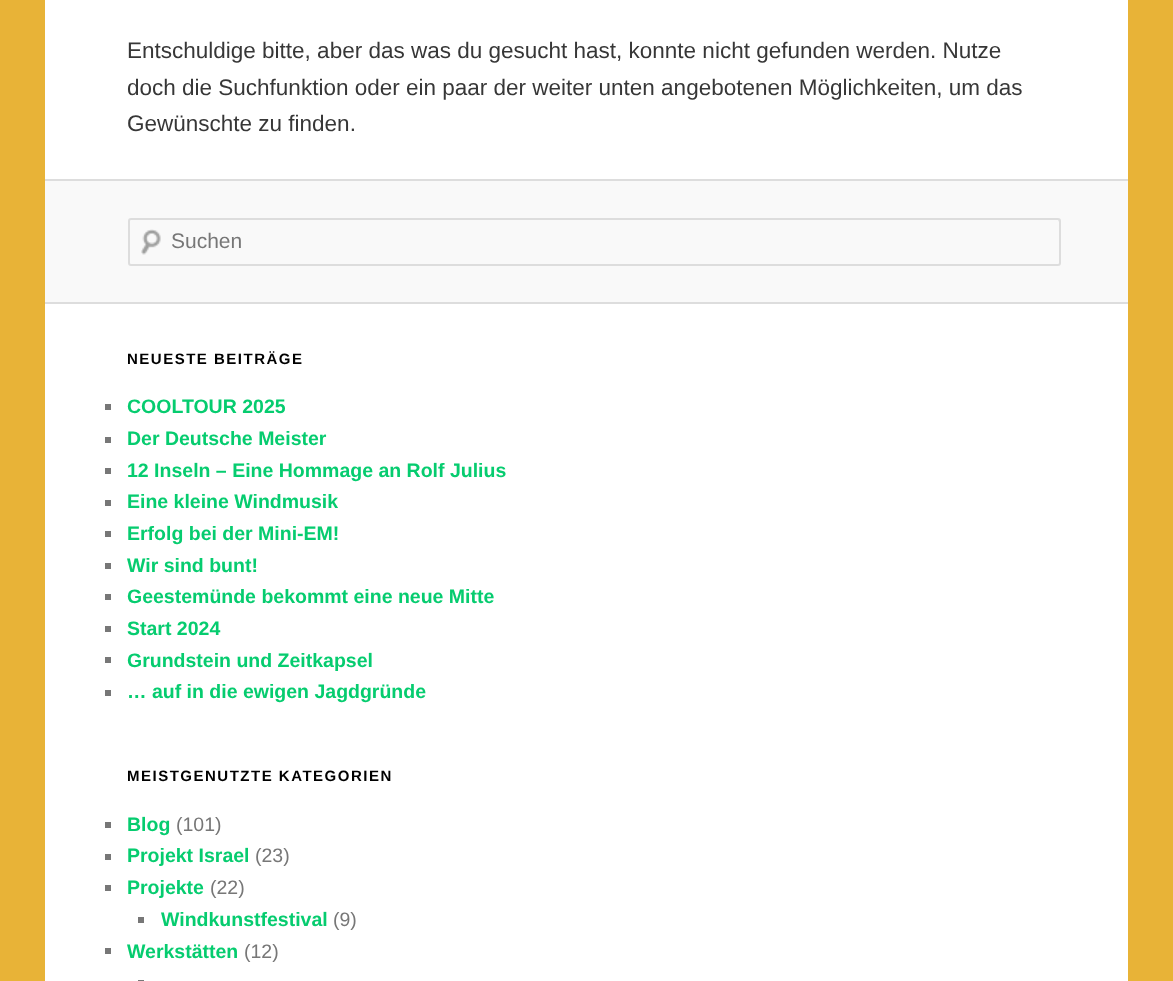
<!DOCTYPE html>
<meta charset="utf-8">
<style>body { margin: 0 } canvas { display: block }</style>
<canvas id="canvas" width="1173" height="981"></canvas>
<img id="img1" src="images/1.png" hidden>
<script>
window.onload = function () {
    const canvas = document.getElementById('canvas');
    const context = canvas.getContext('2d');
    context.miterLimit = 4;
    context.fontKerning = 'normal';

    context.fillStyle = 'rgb(232, 179, 55)';
    context.fillRect(0, 0, 1173, 981);
    context.fillStyle = 'rgb(255, 255, 255)';
    context.fillRect(45, 0, 1083, 981);
    context.fillStyle = 'rgb(249, 249, 249)';
    context.fillRect(45, 181, 1083, 121);
    context.fillStyle = 'rgb(221, 221, 221)';
    context.fillRect(45, 179, 1083, 2);
    context.fillRect(45, 302, 1083, 2);
    context.drawImage(document.getElementById('img1'), 141, 229, 20, 26);
    context.fillStyle = 'rgb(224, 224, 224)';
    context.beginPath();
    context.moveTo(130, 220);
    context.lineTo(1058, 220);
    context.lineTo(1059, 222);
    context.bezierCurveTo(1059, 221, 1059, 219, 1058, 219);
    context.lineTo(130, 219);
    context.bezierCurveTo(129, 219, 129, 221, 129, 222);
    context.closePath();
    context.fill();
    context.beginPath();
    context.roundRect(129, 219, 931, 46, 2);
    context.strokeStyle = 'rgb(221, 221, 221)';
    context.lineWidth = 2;
    context.stroke();
    context.fillStyle = 'rgb(119, 119, 119)';
    context.fillRect(105, 404, 6, 6);
    context.fillRect(105, 437, 6, 6);
    context.fillRect(105, 468, 6, 6);
    context.fillRect(105, 500, 6, 6);
    context.fillRect(105, 531, 6, 6);
    context.fillRect(105, 563, 6, 6);
    context.fillRect(105, 594, 6, 6);
    context.fillRect(105, 626, 6, 6);
    context.fillRect(105, 657, 6, 6);
    context.fillRect(105, 690, 6, 6);
    context.fillRect(105, 822, 6, 6);
    context.fillRect(105, 854, 6, 6);
    context.fillRect(105, 885, 6, 6);
    context.fillRect(138, 917, 6, 6);
    context.fillRect(105, 948, 6, 6);
    context.fillRect(138, 980, 6, 1);
    context.font = '22.5px Liberation Sans';
    context.fillStyle = 'rgb(55, 55, 55)';
    context.fillText('Entschuldige bitte, aber das was du gesucht hast, konnte nicht gefunden werden. Nutze', 127, 58);
    context.fillText('doch die Suchfunktion oder ein paar der weiter unten angebotenen Möglichkeiten, um das', 127, 95);
    context.fillText('Gewünschte zu finden.', 127, 131);
    context.font = '21px Liberation Sans';
    context.fillStyle = 'rgb(119, 119, 119)';
    context.fillText('Suchen', 171, 248);
    context.letterSpacing = '1.5px';
    context.font = 'bold 15px Liberation Sans';
    context.fillStyle = 'rgb(0, 0, 0)';
    context.fillText('NEUESTE BEITRÄGE', 127, 364);
    context.letterSpacing = '0px';
    context.font = 'bold 19.5px Liberation Sans';
    context.fillStyle = 'rgb(6, 204, 111)';
    context.fillText('COOLTOUR 2025', 127, 413);
    context.fillText('Der Deutsche Meister', 127, 445);
    context.fillText('12 Inseln – Eine Hommage an Rolf Julius', 127, 477);
    context.fillText('Eine kleine Windmusik', 127, 508);
    context.fillText('Erfolg bei der Mini-EM!', 127, 540);
    context.fillText('Wir sind bunt!', 127, 572);
    context.fillText('Geestemünde bekommt eine neue Mitte', 127, 603);
    context.fillText('Start 2024', 127, 635);
    context.fillText('Grundstein und Zeitkapsel', 127, 667);
    context.fillText('… auf in die ewigen Jagdgründe', 127, 698);
    context.letterSpacing = '1.5px';
    context.font = 'bold 15px Liberation Sans';
    context.fillStyle = 'rgb(0, 0, 0)';
    context.fillText('MEISTGENUTZTE KATEGORIEN', 127, 781);
    context.letterSpacing = '0px';
    context.font = 'bold 19.5px Liberation Sans';
    context.fillStyle = 'rgb(6, 204, 111)';
    context.fillText('Blog', 127, 831);
    context.font = '19.5px Liberation Sans';
    context.fillStyle = 'rgb(119, 119, 119)';
    context.fillText('(101)', 176, 831);
    context.font = 'bold 19.5px Liberation Sans';
    context.fillStyle = 'rgb(6, 204, 111)';
    context.fillText('Projekt Israel', 127, 862);
    context.font = '19.5px Liberation Sans';
    context.fillStyle = 'rgb(119, 119, 119)';
    context.fillText('(23)', 255, 862);
    context.font = 'bold 19.5px Liberation Sans';
    context.fillStyle = 'rgb(6, 204, 111)';
    context.fillText('Projekte', 127, 894);
    context.font = '19.5px Liberation Sans';
    context.fillStyle = 'rgb(119, 119, 119)';
    context.fillText('(22)', 210, 894);
    context.font = 'bold 19.5px Liberation Sans';
    context.fillStyle = 'rgb(6, 204, 111)';
    context.fillText('Windkunstfestival', 161, 926);
    context.font = '19.5px Liberation Sans';
    context.fillStyle = 'rgb(119, 119, 119)';
    context.fillText('(9)', 333, 926);
    context.font = 'bold 19.5px Liberation Sans';
    context.fillStyle = 'rgb(6, 204, 111)';
    context.fillText('Werkstätten', 127, 958);
    context.font = '19.5px Liberation Sans';
    context.fillStyle = 'rgb(119, 119, 119)';
    context.fillText('(12)', 244, 958);
};
</script>
